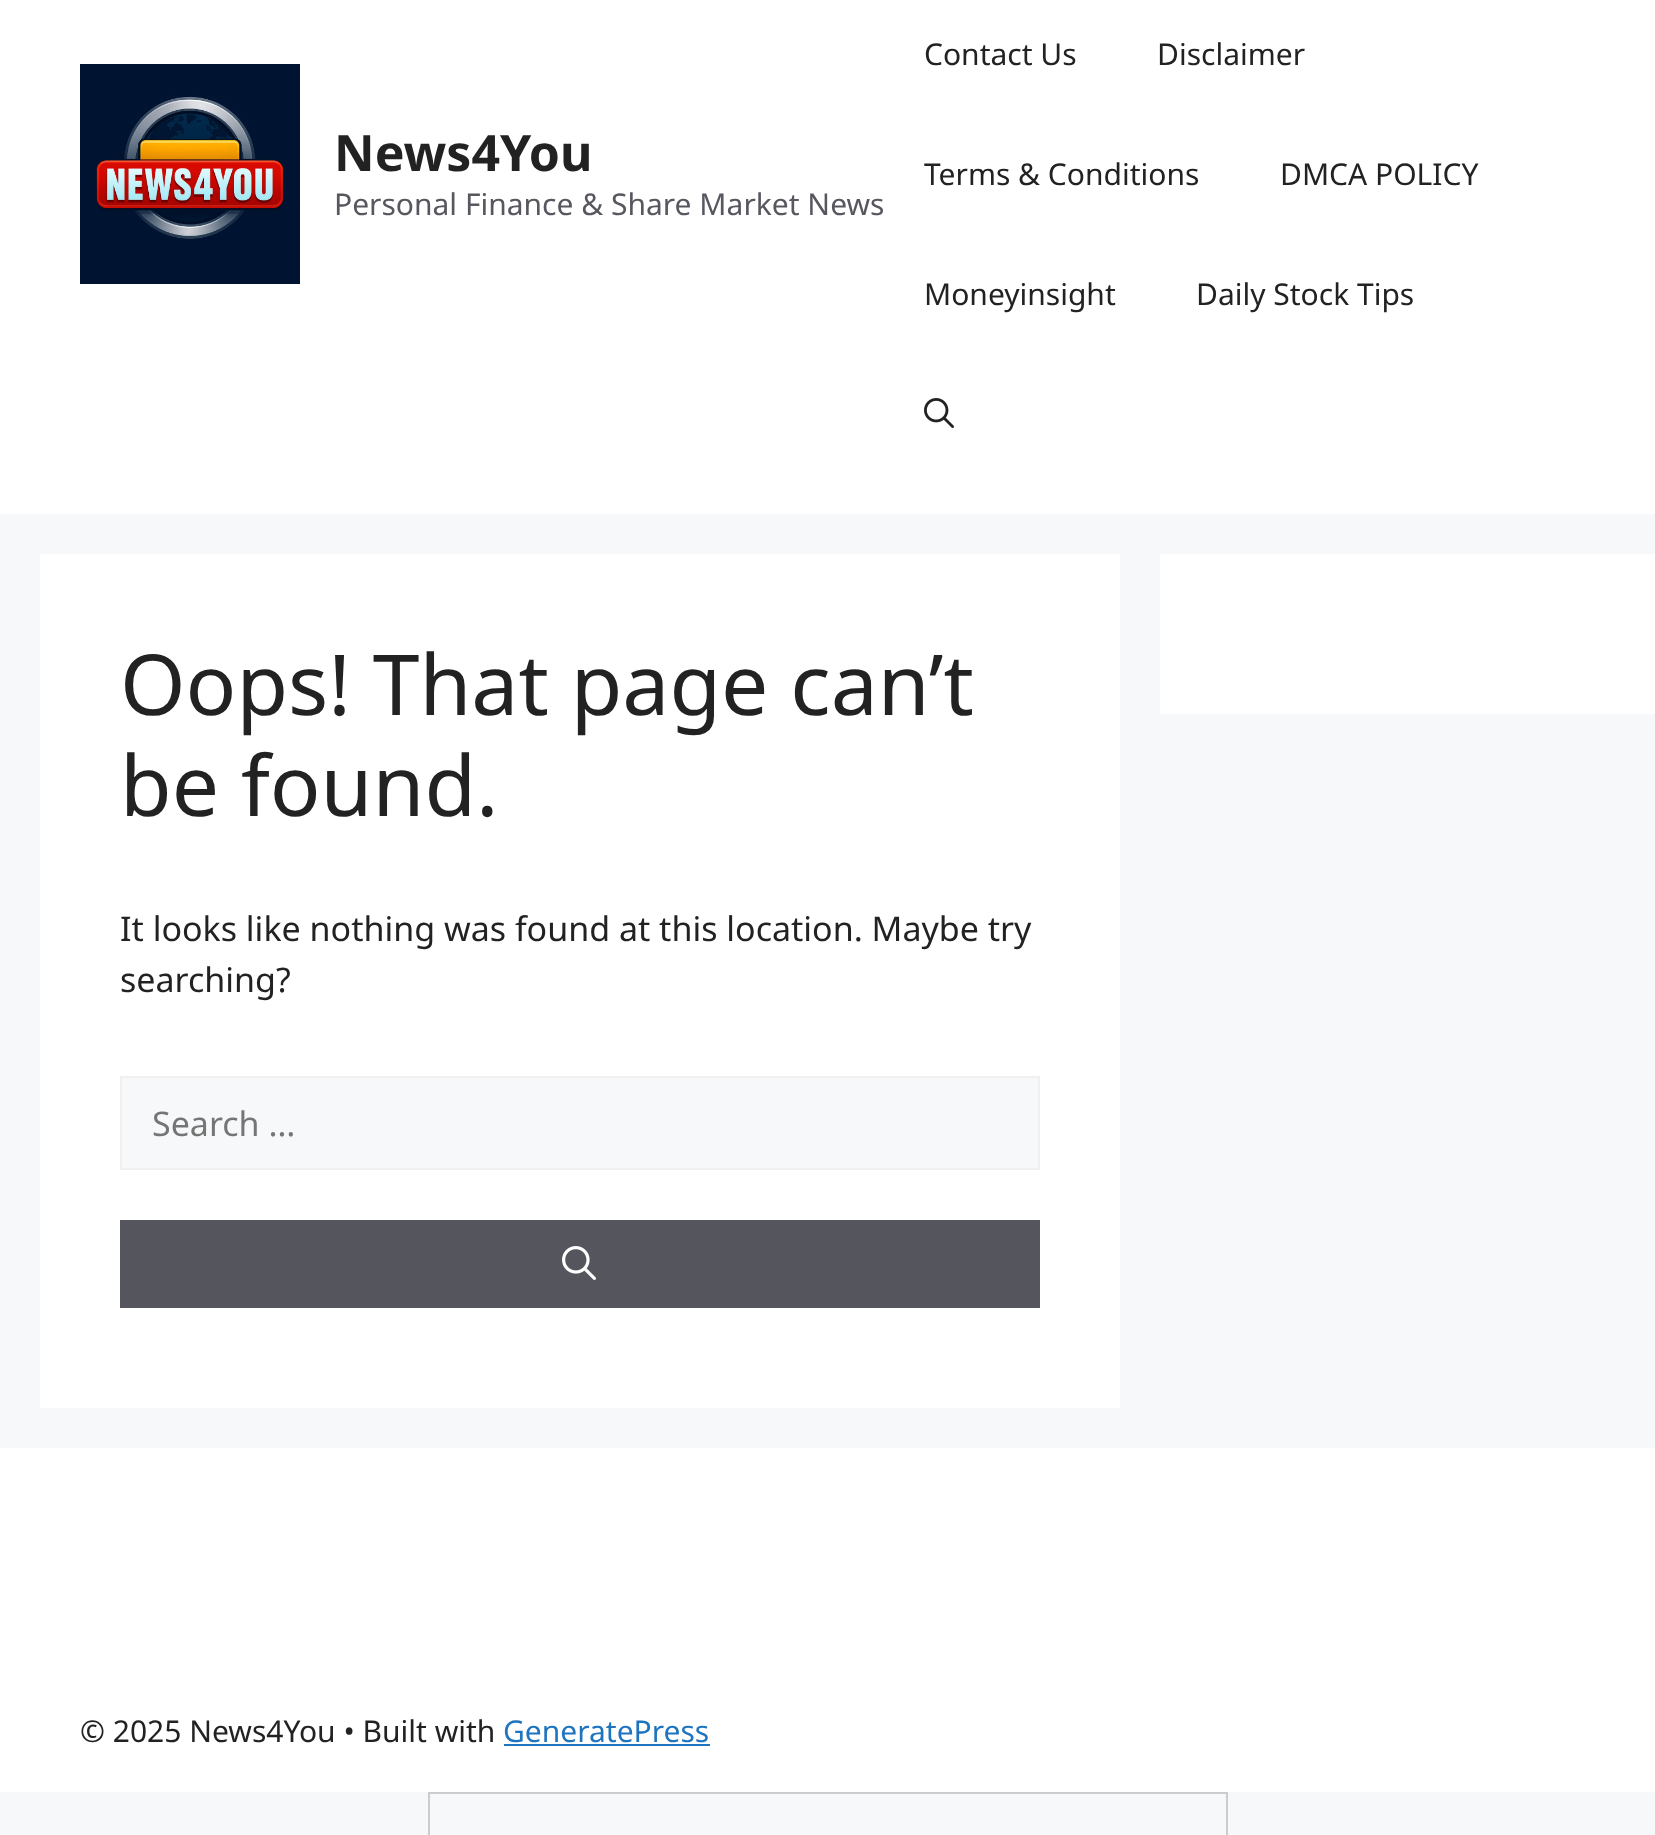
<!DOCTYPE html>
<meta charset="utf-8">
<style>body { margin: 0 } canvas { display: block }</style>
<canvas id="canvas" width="1655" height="1835"></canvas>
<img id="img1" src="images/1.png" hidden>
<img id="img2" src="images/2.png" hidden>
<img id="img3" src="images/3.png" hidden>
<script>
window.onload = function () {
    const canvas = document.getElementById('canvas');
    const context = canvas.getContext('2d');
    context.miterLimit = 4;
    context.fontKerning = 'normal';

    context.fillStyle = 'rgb(247, 248, 249)';
    context.fillRect(0, 0, 1655, 1835);
    context.fillStyle = 'rgb(255, 255, 255)';
    context.fillRect(0, 0, 1655, 514);
    context.drawImage(document.getElementById('img1'), 80, 64, 220, 220);
    context.drawImage(document.getElementById('img2'), 924, 398, 30, 30);
    context.fillRect(1160, 554, 495, 160);
    context.fillRect(40, 554, 1080, 854);
    context.fillStyle = 'rgb(247, 248, 249)';
    context.beginPath();
    context.rect(121, 1077, 918, 92);
    context.fill();
    context.strokeStyle = 'rgb(240, 240, 240)';
    context.lineWidth = 2;
    context.stroke();
    context.fillStyle = 'rgb(85, 85, 94)';
    context.fillRect(120, 1220, 920, 88);
    context.drawImage(document.getElementById('img3'), 562, 1246, 34, 34);
    context.fillStyle = 'rgb(255, 255, 255)';
    context.fillRect(0, 1448, 1655, 344);
    context.fillStyle = 'rgb(31, 116, 191)';
    context.fillRect(504, 1744, 206, 2);
    context.strokeStyle = 'rgb(204, 204, 204)';
    context.strokeRect(429, 1793, 798, 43);
    context.font = 'bold 50px Noto Sans';
    context.fillStyle = 'rgb(34, 34, 34)';
    context.fillText('News4You', 334, 171);
    context.font = '30px Noto Sans';
    context.fillStyle = 'rgb(87, 87, 96)';
    context.fillText('Personal Finance & Share Market News', 334, 215);
    context.fillStyle = 'rgb(34, 34, 34)';
    context.fillText('Contact Us', 924, 65);
    context.fillText('Disclaimer', 1157, 65);
    context.fillText('Terms & Conditions', 924, 185);
    context.fillText('DMCA POLICY', 1280, 185);
    context.fillText('Moneyinsight', 924, 305);
    context.fillText('Daily Stock Tips', 1196, 305);
    context.font = '84px Noto Sans';
    context.fillText('Oops! That page can’t', 120, 715);
    context.fillText('be found.', 120, 816);
    context.font = '34px Noto Sans';
    context.fillText('It looks like nothing was found at this location. Maybe try', 120, 941);
    context.fillText('searching?', 120, 992);
    context.fillStyle = 'rgb(117, 117, 117)';
    context.fillText('Search …', 152, 1136);
    context.font = '30px Noto Sans';
    context.fillStyle = 'rgb(34, 34, 34)';
    context.fillText('© 2025 News4You • Built with', 80, 1742);
    context.fillStyle = 'rgb(31, 116, 191)';
    context.fillText('GeneratePress', 503, 1742);
};
</script>
